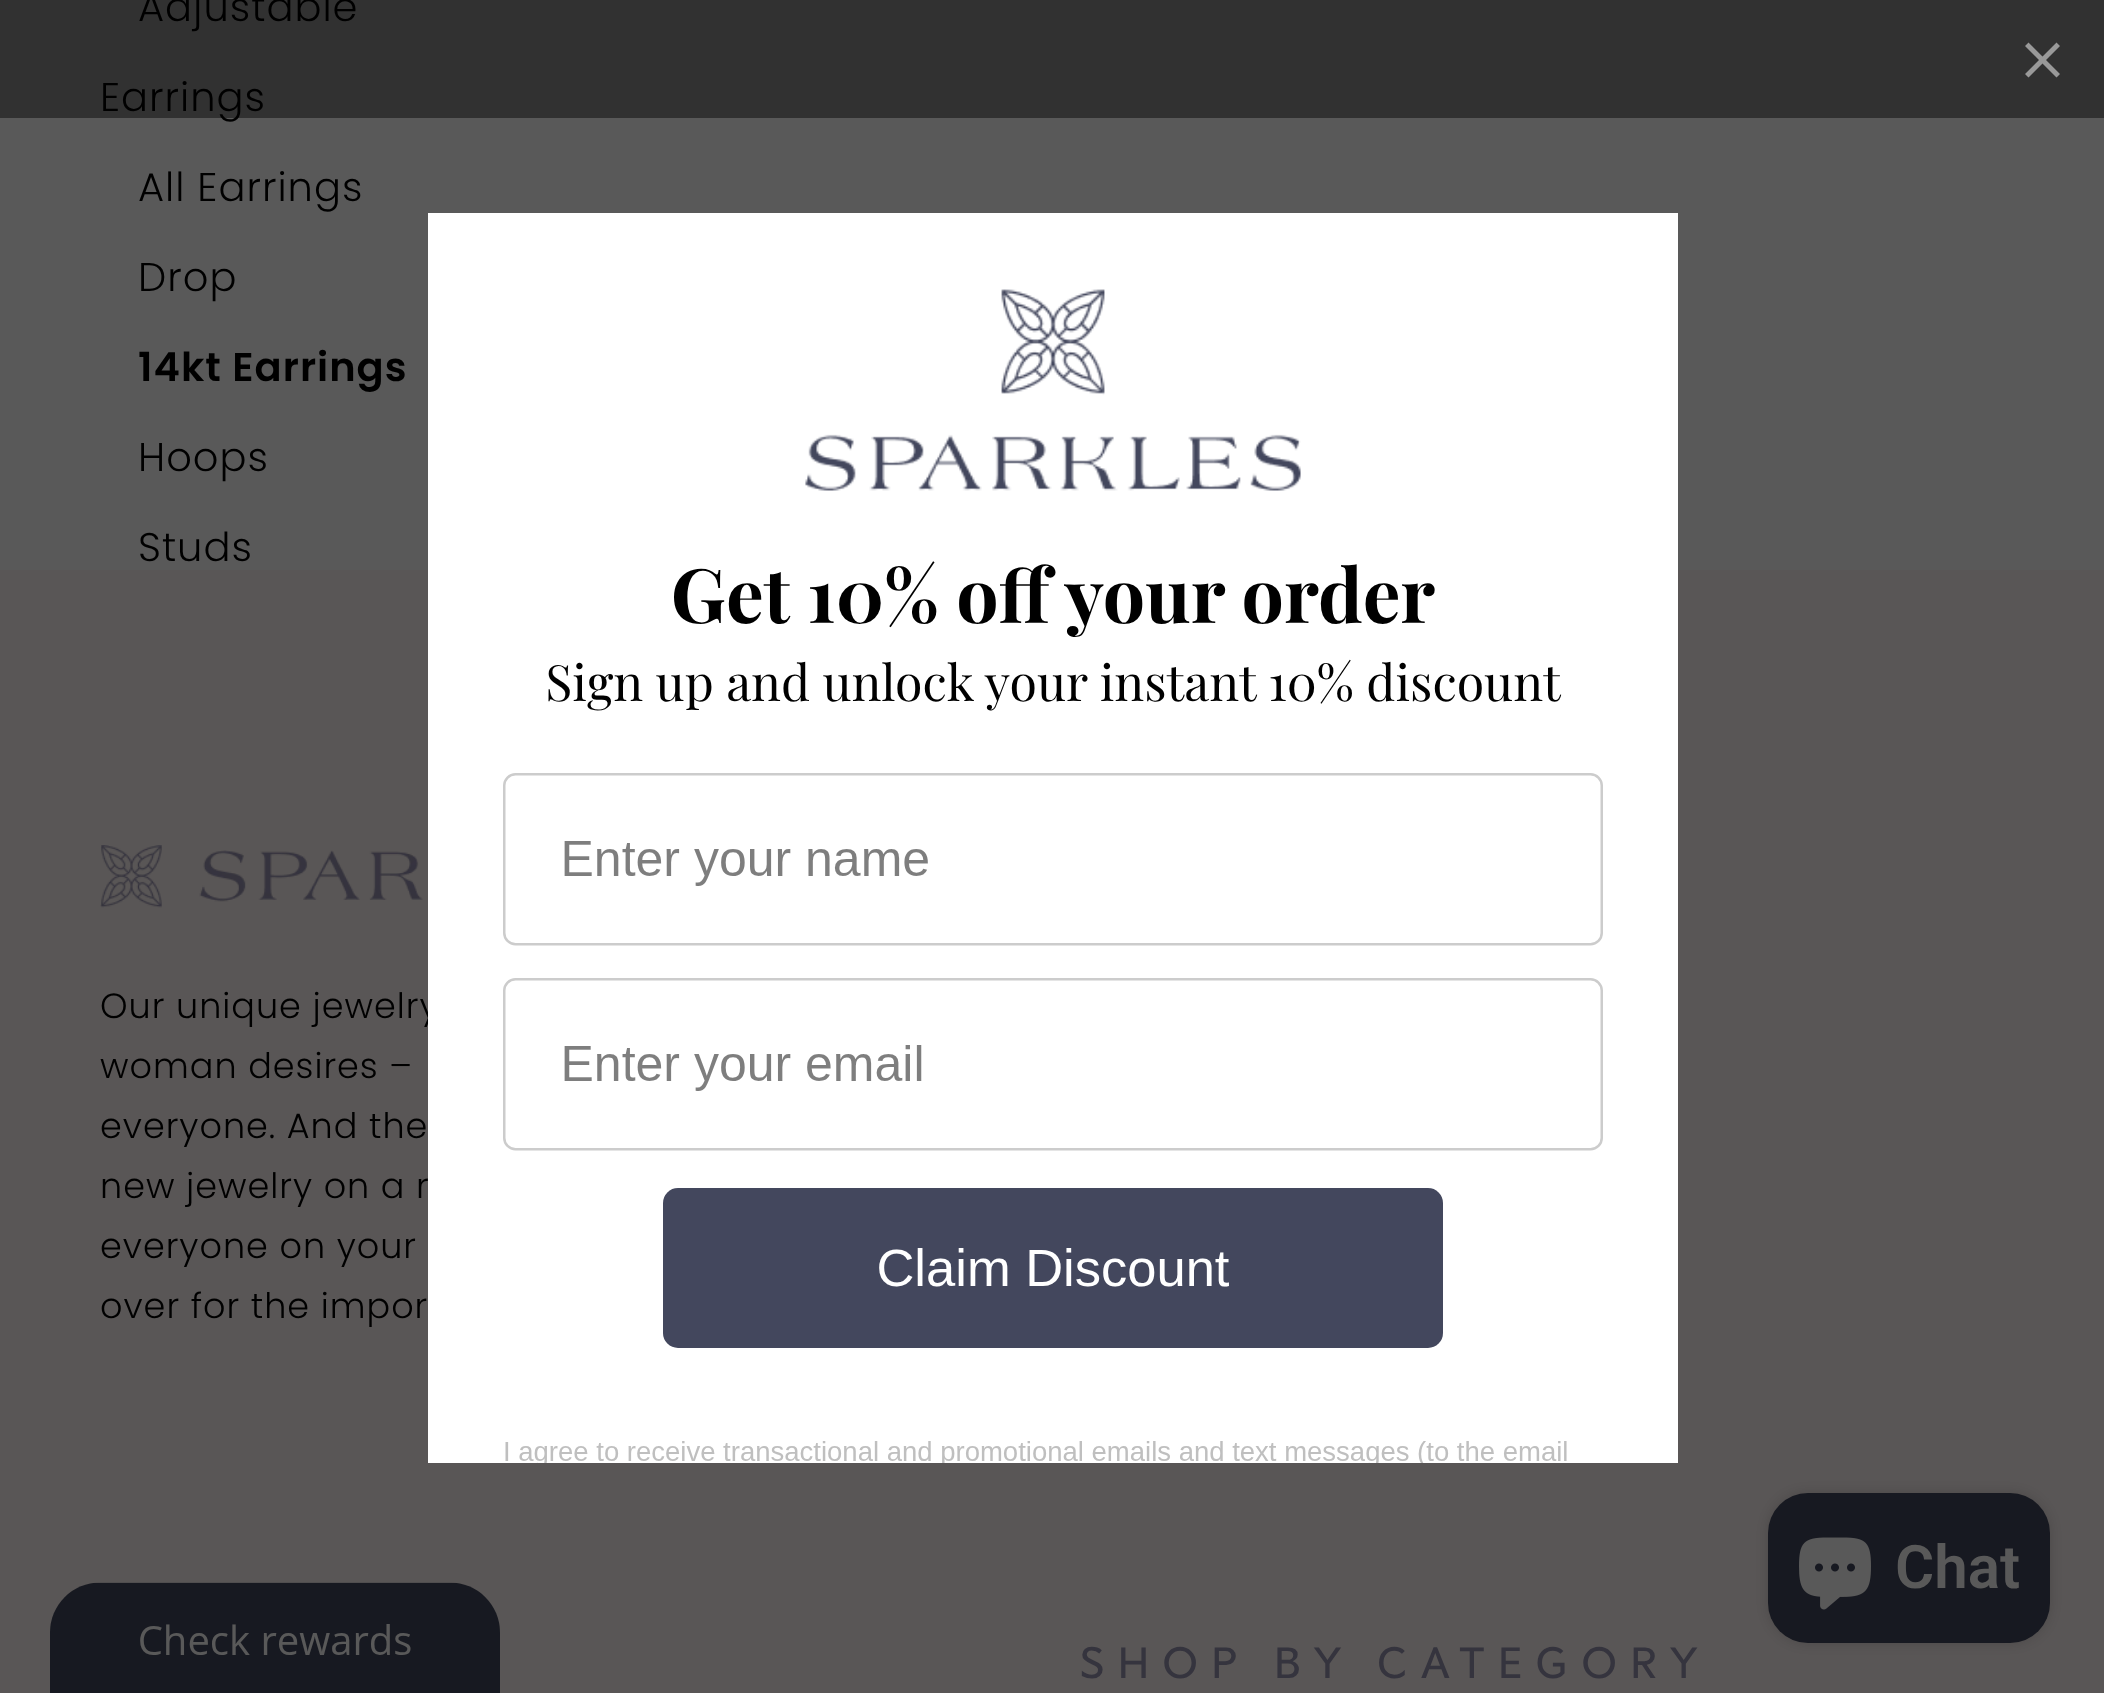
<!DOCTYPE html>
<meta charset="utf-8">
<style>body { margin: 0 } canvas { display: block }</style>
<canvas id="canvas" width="2104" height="1693"></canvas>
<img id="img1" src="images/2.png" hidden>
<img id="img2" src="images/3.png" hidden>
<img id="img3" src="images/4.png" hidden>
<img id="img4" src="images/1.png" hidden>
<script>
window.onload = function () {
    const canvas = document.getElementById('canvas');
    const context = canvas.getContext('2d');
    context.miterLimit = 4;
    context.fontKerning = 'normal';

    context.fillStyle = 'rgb(89, 89, 89)';
    context.fillRect(0, 0, 2104, 1693);
    context.fillStyle = 'rgb(89, 86, 86)';
    context.fillRect(0, 570, 2104, 1123);
    context.drawImage(document.getElementById('img1'), 100, 845, 323, 63);
    context.fillStyle = 'rgba(0, 0, 0, 0.15)';
    context.filter = 'blur(6px)';
    context.beginPath();
    context.roundRect(1768, 1493, 282, 150, 40);
    context.fill();
    context.filter = 'none';
    context.fillStyle = 'rgb(23, 25, 33)';
    context.beginPath();
    context.roundRect(1768, 1493, 282, 150, 40);
    context.fill();
    context.drawImage(document.getElementById('img2'), 1799, 1537, 72, 73);
    context.drawImage(document.getElementById('img3'), 50, 1582, 450, 111);
    context.letterSpacing = '1px';
    context.font = '300 40px Poppins';
    context.fillStyle = 'rgb(0, 0, 0)';
    context.fillText('Adjustable', 138, 21);
    context.fillText('Earrings', 100, 111);
    context.fillStyle = 'rgba(0, 0, 0, 0.45)';
    context.fillRect(0, 0, 2104, 118);
    context.fillStyle = 'rgb(153, 153, 153)';
    context.beginPath();
    context.moveTo(2060, 46);
    context.lineTo(2046, 60);
    context.lineTo(2060, 74);
    context.lineTo(2056.5, 77.5);
    context.lineTo(2042.5, 63.5);
    context.lineTo(2028.5, 77.5);
    context.lineTo(2025, 74);
    context.lineTo(2039, 60);
    context.lineTo(2025, 46);
    context.lineTo(2028.5, 42.5);
    context.lineTo(2042.5, 56.5);
    context.lineTo(2056.5, 42.5);
    context.closePath();
    context.fill();
    context.fillStyle = 'rgb(0, 0, 0)';
    context.fillText('All Earrings', 138, 201);
    context.fillText('Drop', 138, 291);
    context.font = '600 40px Poppins';
    context.fillText('14kt Earrings', 138, 381);
    context.font = '300 40px Poppins';
    context.fillText('Hoops', 138, 471);
    context.fillText('Studs', 138, 561);
    context.font = '300 35px Poppins';
    context.fillText('Our unique jewelry', 100, 1018);
    context.drawImage(document.getElementById('img4'), 428, 213, 1250, 1250);
    context.fillText('woman desires –', 100, 1078);
    context.fillText('everyone. And the', 100, 1138);
    context.fillText('new jewelry on a r', 100, 1198);
    context.fillText('everyone on your', 100, 1258);
    context.fillText('over for the impor', 100, 1318);
    context.letterSpacing = '13.5px';
    context.font = '45px "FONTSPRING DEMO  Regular"';
    context.fillStyle = 'rgb(53, 52, 62)';
    context.fillText('SHOP BY CATEGORY', 1080, 1678);
    context.letterSpacing = '0px';
    context.font = '600 60px Roboto';
    context.fillStyle = 'rgb(89, 89, 89)';
    context.fillText('Chat', 1895, 1588);
};
</script>
